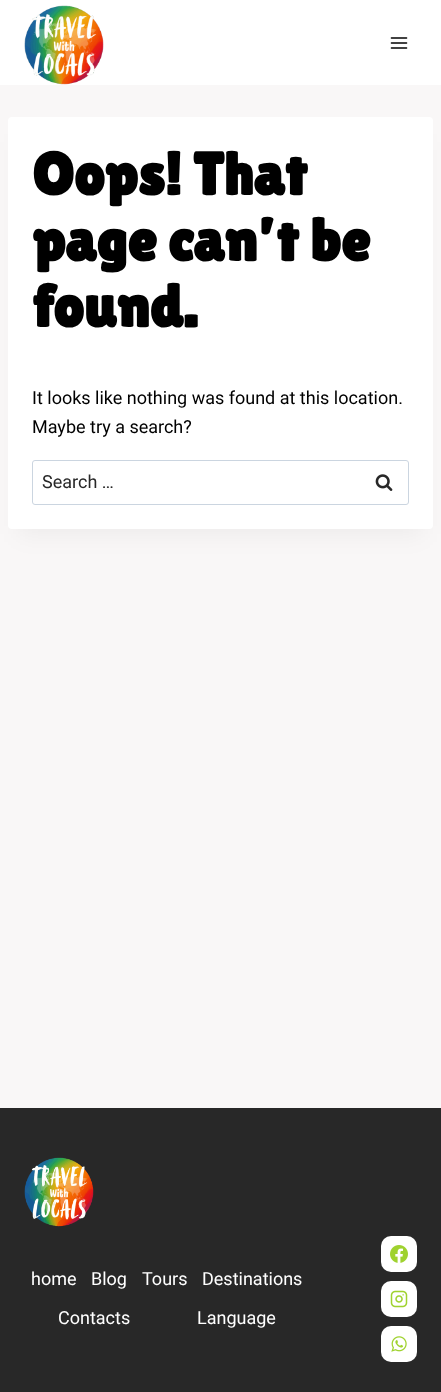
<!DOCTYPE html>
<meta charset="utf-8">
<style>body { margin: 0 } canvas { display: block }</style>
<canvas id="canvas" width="441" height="1392"></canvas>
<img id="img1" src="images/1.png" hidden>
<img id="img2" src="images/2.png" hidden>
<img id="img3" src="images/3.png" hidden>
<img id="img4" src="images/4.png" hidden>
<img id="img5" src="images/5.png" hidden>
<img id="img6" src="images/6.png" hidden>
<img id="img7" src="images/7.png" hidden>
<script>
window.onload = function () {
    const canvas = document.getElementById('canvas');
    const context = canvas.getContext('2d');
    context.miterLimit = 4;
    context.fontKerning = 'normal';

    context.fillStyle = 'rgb(249, 247, 247)';
    context.fillRect(0, 0, 441, 1392);
    context.fillStyle = 'rgb(255, 255, 255)';
    context.fillRect(0, 0, 441, 85);
    context.drawImage(document.getElementById('img1'), 24, 5, 80, 80);
    context.drawImage(document.getElementById('img2'), 390, 37, 18, 12);
    context.fillStyle = 'rgba(0, 0, 0, 0.05)';
    context.filter = 'blur(12.5px)';
    context.beginPath();
    context.rect(18, 142, 405, 392);
    context.fill();
    context.filter = 'none';
    context.fillStyle = 'rgb(255, 255, 255)';
    context.beginPath();
    context.roundRect(8, 117, 425, 412, 4);
    context.fill();
    context.beginPath();
    context.roundRect(32.5, 460.5, 376, 44, 2.5);
    context.strokeStyle = 'rgb(203, 213, 224)';
    context.stroke();
    context.drawImage(document.getElementById('img3'), 375, 474, 18, 17);
    context.fillStyle = 'rgb(40, 40, 40)';
    context.fillRect(0, 1108, 441, 284);
    context.drawImage(document.getElementById('img4'), 24, 1157, 70, 70);
    context.fillStyle = 'rgb(255, 255, 255)';
    context.beginPath();
    context.roundRect(381, 1236, 36, 36, 10);
    context.fill();
    context.drawImage(document.getElementById('img5'), 390, 1245, 18, 18);
    context.beginPath();
    context.roundRect(381, 1281, 36, 36, 10);
    context.fill();
    context.drawImage(document.getElementById('img6'), 390, 1290, 18, 18);
    context.beginPath();
    context.roundRect(381, 1326, 36, 36, 10);
    context.fill();
    context.drawImage(document.getElementById('img7'), 391, 1336, 16, 16);
    context.font = 'bold 60px Lilita One';
    context.fillStyle = 'rgb(0, 0, 0)';
    context.fillText('Oops! That', 32, 195);
    context.fillText('page can’t be', 32, 261);
    context.fillText('found.', 32, 327);
    context.font = '18px Roboto';
    context.fillText('It looks like nothing was found at this location.', 32, 404);
    context.fillText('Maybe try a search?', 32, 433);
    context.fillStyle = 'rgb(40, 40, 40)';
    context.fillText('Search …', 42, 488);
    context.fillStyle = 'rgb(255, 255, 255)';
    context.fillText('home', 31, 1285);
    context.fillText('Blog', 91, 1285);
    context.fillText('Tours', 142, 1285);
    context.fillText('Destinations', 202, 1285);
    context.fillText('Contacts', 58, 1324);
    context.fillText('Language', 197, 1324);
};
</script>
